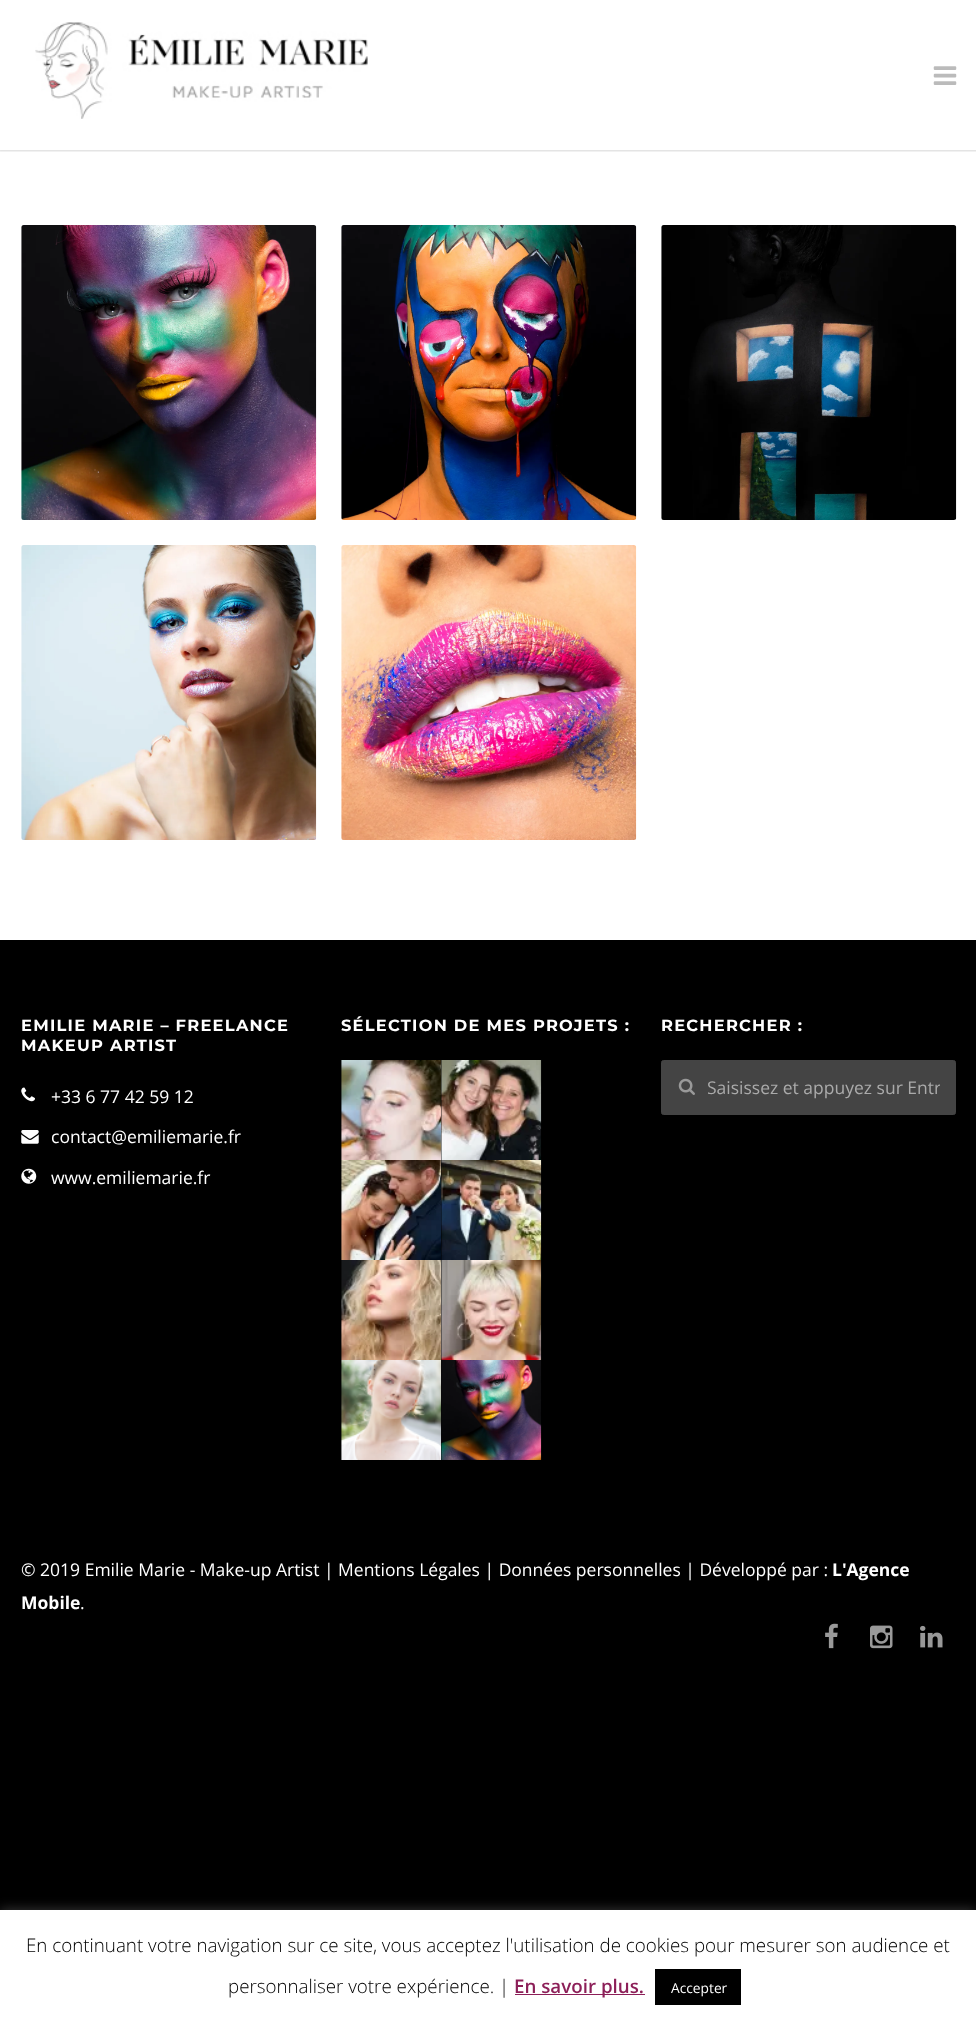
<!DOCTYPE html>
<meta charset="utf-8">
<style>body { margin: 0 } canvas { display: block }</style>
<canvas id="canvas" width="976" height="2026"></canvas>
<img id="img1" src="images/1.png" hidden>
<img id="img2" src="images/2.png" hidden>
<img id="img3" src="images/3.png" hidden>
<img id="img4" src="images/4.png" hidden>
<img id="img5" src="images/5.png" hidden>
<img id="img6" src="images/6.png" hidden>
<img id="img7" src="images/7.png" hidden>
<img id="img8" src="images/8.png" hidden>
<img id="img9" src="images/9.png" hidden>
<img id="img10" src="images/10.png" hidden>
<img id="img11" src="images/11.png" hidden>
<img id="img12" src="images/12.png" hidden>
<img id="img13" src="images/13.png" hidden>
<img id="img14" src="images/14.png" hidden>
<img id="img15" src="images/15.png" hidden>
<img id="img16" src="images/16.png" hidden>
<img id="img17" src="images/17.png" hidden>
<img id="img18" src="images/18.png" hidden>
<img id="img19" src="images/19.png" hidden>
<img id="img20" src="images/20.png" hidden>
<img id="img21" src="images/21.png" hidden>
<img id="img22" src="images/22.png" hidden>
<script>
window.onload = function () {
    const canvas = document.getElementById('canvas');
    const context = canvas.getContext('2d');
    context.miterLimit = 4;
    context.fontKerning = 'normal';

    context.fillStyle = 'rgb(0, 0, 0)';
    context.fillRect(0, 0, 976, 2026);
    context.fillStyle = 'rgb(255, 255, 255)';
    context.fillRect(0, 0, 976, 940);
    context.save();
    context.beginPath();
    context.rect(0, 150, 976, 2);
    context.clip();
    context.fillStyle = 'rgba(0, 0, 0, 0.16)';
    context.filter = 'blur(1px)';
    context.beginPath();
    context.rect(-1, -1, 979, 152);
    context.fill();
    context.filter = 'none';
    context.restore();
    context.drawImage(document.getElementById('img1'), 35, 22, 333, 97);
    context.drawImage(document.getElementById('img2'), 933, 66, 24, 19);
    context.drawImage(document.getElementById('img3'), 21, 225, 296, 295);
    context.drawImage(document.getElementById('img4'), 341, 225, 296, 295);
    context.drawImage(document.getElementById('img5'), 661, 225, 296, 295);
    context.drawImage(document.getElementById('img6'), 21, 545, 296, 295);
    context.drawImage(document.getElementById('img7'), 341, 545, 296, 295);
    context.drawImage(document.getElementById('img8'), 21, 1087, 14, 15);
    context.drawImage(document.getElementById('img9'), 21, 1130, 18, 14);
    context.drawImage(document.getElementById('img10'), 21, 1168, 16, 16);
    context.drawImage(document.getElementById('img11'), 341, 1060, 101, 100);
    context.drawImage(document.getElementById('img12'), 441, 1060, 101, 100);
    context.drawImage(document.getElementById('img13'), 341, 1160, 101, 100);
    context.drawImage(document.getElementById('img14'), 441, 1160, 101, 100);
    context.drawImage(document.getElementById('img15'), 341, 1260, 101, 100);
    context.drawImage(document.getElementById('img16'), 441, 1260, 101, 100);
    context.drawImage(document.getElementById('img17'), 341, 1360, 101, 100);
    context.drawImage(document.getElementById('img18'), 441, 1360, 101, 100);
    context.fillStyle = 'rgb(68, 68, 68)';
    context.beginPath();
    context.roundRect(661.5, 1060.5, 294, 54, 2);
    context.fill();
    context.strokeStyle = 'rgb(68, 68, 68)';
    context.stroke();
    context.drawImage(document.getElementById('img19'), 678, 1078, 17, 17);
    context.drawImage(document.getElementById('img20'), 825, 1623, 13, 26);
    context.drawImage(document.getElementById('img21'), 870, 1625, 23, 24);
    context.drawImage(document.getElementById('img22'), 920, 1625, 23, 23);
    context.fillStyle = 'rgba(172, 171, 171, 0.3)';
    context.filter = 'blur(6px)';
    context.beginPath();
    context.rect(0, 1909, 976, 116);
    context.fill();
    context.filter = 'none';
    context.fillStyle = 'rgb(255, 255, 255)';
    context.fillRect(0, 1910, 976, 116);
    context.fillStyle = 'rgb(140, 31, 88)';
    context.fillRect(515, 1994, 130, 1);
    context.fillStyle = 'rgb(0, 0, 0)';
    context.fillRect(655, 1969, 86, 36);
    context.letterSpacing = '1.25px';
    context.font = 'bold 16.25px Montserrat';
    context.fillStyle = 'rgb(255, 255, 255)';
    context.fillText('EMILIE MARIE – FREELANCE', 21, 1031);
    context.fillText('MAKEUP ARTIST', 21, 1051);
    context.letterSpacing = '0px';
    context.font = '17.5px Open Sans';
    context.fillText('+33 6 77 42 59 12', 51, 1103);
    context.fillText('contact@emiliemarie.fr', 51, 1143);
    context.fillText('www.emiliemarie.fr', 51, 1184);
    context.letterSpacing = '1.25px';
    context.font = 'bold 16.25px Montserrat';
    context.fillText('SÉLECTION DE MES PROJETS :', 341, 1031);
    context.fillText('RECHERCHER :', 661, 1031);
    context.save();
    context.beginPath();
    context.rect(708, 1074, 232, 27);
    context.clip();
    context.letterSpacing = '0px';
    context.font = '17.5px Open Sans';
    context.fillStyle = 'rgb(170, 170, 170)';
    context.fillText('Saisissez et appuyez sur Entr', 707, 1094);
    context.restore();
    context.letterSpacing = '0px';
    context.font = '17.5px Open Sans';
    context.fillText('© 2019 Emilie Marie - Make-up Artist | Mentions Légales | Données personnelles | Développé par :', 21, 1576);
    context.font = 'bold 17.5px Open Sans';
    context.fillText('L\'Agence', 832, 1576);
    context.fillText('Mobile', 21, 1609);
    context.font = '17.5px Open Sans';
    context.fillText('.', 80, 1609);
    context.font = '300 18.75px Open Sans';
    context.fillStyle = 'rgb(0, 0, 0)';
    context.fillText('En continuant votre navigation sur ce site, vous acceptez l\'utilisation de cookies pour mesurer son audience et', 26, 1952);
    context.fillText('personnaliser votre expérience. |', 228, 1993);
    context.font = '600 18.75px Open Sans';
    context.fillStyle = 'rgb(140, 31, 88)';
    context.fillText('En savoir plus.', 514, 1993);
    context.font = '13.75px Open Sans';
    context.fillStyle = 'rgb(255, 255, 255)';
    context.fillText('Accepter', 671, 1993);
};
</script>
